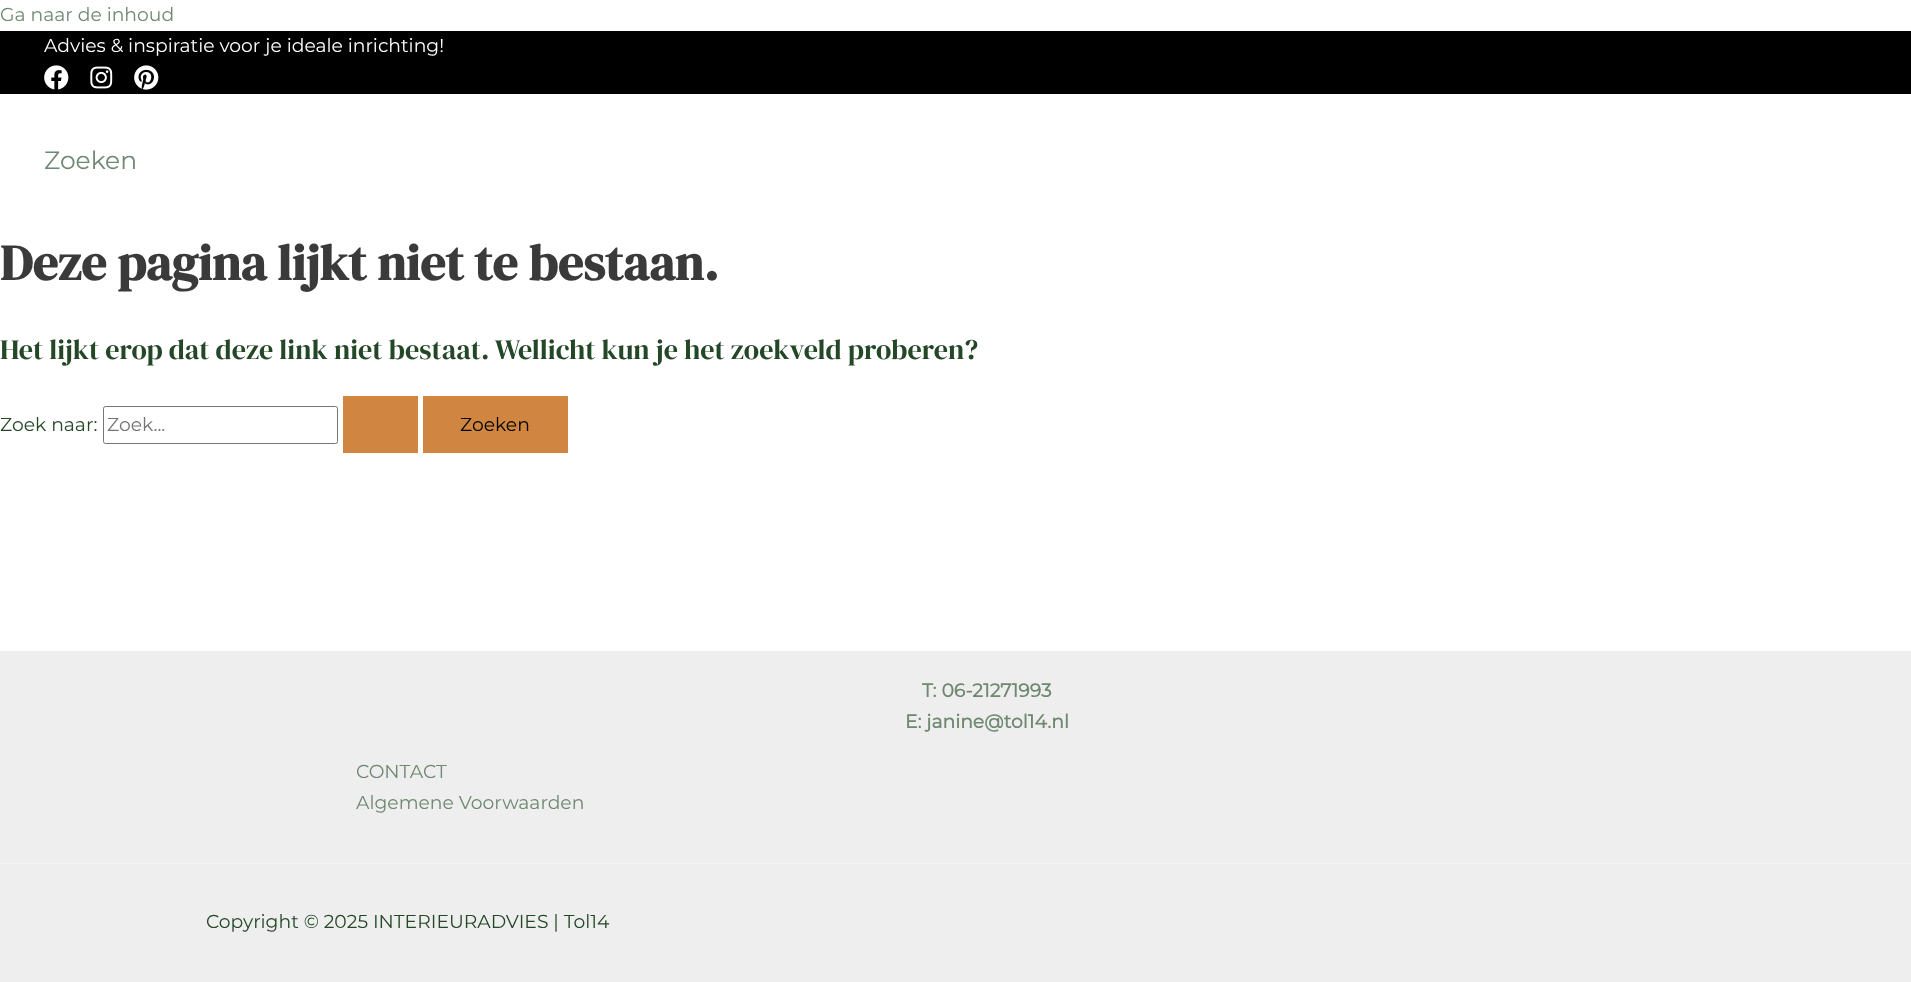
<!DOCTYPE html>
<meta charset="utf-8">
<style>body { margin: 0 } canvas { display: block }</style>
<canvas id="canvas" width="1911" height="982"></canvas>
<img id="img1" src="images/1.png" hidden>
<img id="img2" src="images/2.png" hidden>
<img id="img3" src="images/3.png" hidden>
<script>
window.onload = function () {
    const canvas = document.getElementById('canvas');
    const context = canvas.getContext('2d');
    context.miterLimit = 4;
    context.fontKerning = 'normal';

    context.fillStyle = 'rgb(255, 255, 255)';
    context.fillRect(0, 0, 1911, 982);
    context.fillStyle = 'rgb(0, 0, 0)';
    context.fillRect(0, 31, 1911, 63);
    context.drawImage(document.getElementById('img1'), 44, 65, 25, 25);
    context.drawImage(document.getElementById('img2'), 90, 66, 23, 23);
    context.drawImage(document.getElementById('img3'), 134, 65, 25, 25);
    context.beginPath();
    context.roundRect(103.5, 406.5, 234, 37, 2);
    context.strokeStyle = 'rgb(118, 118, 118)';
    context.stroke();
    context.fillStyle = 'rgb(208, 134, 64)';
    context.fillRect(343, 396, 75, 57);
    context.fillRect(423, 396, 145, 57);
    context.fillStyle = 'rgb(238, 238, 238)';
    context.fillRect(0, 651, 1911, 212);
    context.fillRect(0, 864, 1911, 118);
    context.fillStyle = 'rgb(242, 245, 247)';
    context.fillRect(0, 863, 1911, 1);
    context.font = '100 18.75px Montserrat';
    context.fillStyle = 'rgb(111, 136, 113)';
    context.fillText('Ga naar de inhoud', 0, 21);
    context.fillStyle = 'rgb(255, 255, 255)';
    context.fillText('Advies & inspiratie voor je ideale inrichting!', 44, 52);
    context.font = '100 25px Montserrat';
    context.fillStyle = 'rgb(111, 136, 113)';
    context.fillText('Zoeken', 44, 169);
    context.font = 'bold 50px DM Serif Display';
    context.fillStyle = 'rgb(58, 58, 58)';
    context.fillText('Deze pagina lijkt niet te bestaan.', 0, 280);
    context.font = '28.1px DM Serif Display';
    context.fillStyle = 'rgb(36, 71, 39)';
    context.fillText('Het lijkt erop dat deze link niet bestaat. Wellicht kun je het zoekveld proberen?', 0, 359);
    context.font = '100 18.75px Montserrat';
    context.fillText('Zoek naar:', 0, 431);
    context.fillStyle = 'rgb(117, 117, 117)';
    context.fillText('Zoek...', 107, 431);
    context.fillStyle = 'rgb(0, 0, 0)';
    context.fillText('Zoeken', 460, 431);
    context.font = 'bold 18.75px Montserrat';
    context.fillStyle = 'rgb(111, 136, 113)';
    context.fillText('T: 06-21271993', 922, 697);
    context.fillText('E: janine@tol14.nl', 905, 728);
    context.font = '100 18.75px Montserrat';
    context.fillText('CONTACT', 356, 778);
    context.fillText('Algemene Voorwaarden', 356, 809);
    context.fillStyle = 'rgb(36, 71, 39)';
    context.fillText('Copyright © 2025 INTERIEURADVIES | Tol14', 206, 928);
};
</script>
